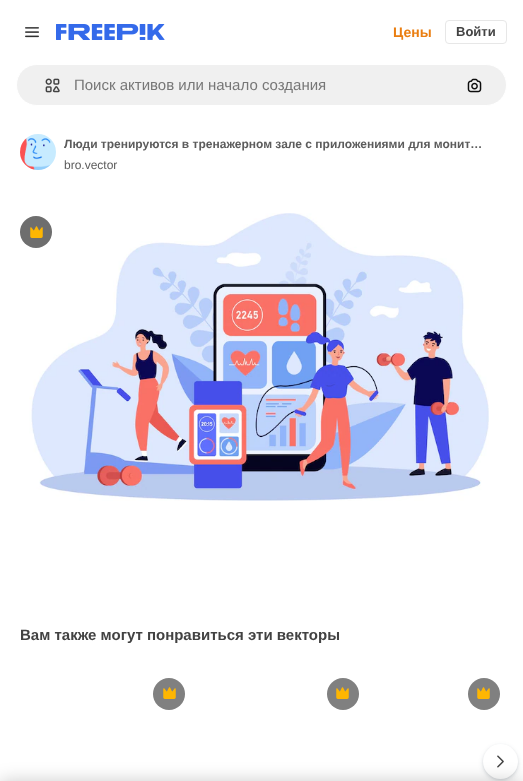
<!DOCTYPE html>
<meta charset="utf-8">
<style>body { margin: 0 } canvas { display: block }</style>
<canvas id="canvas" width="523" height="781"></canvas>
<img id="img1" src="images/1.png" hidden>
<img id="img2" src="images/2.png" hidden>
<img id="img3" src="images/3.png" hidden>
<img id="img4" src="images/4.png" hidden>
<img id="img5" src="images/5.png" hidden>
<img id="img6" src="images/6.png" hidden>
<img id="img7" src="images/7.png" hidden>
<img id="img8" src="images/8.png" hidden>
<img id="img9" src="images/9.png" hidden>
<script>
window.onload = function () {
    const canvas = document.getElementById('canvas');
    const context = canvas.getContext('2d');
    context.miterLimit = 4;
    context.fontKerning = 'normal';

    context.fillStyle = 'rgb(255, 255, 255)';
    context.fillRect(0, 0, 523, 781);
    context.drawImage(document.getElementById('img1'), 25, 27, 14, 11);
    context.drawImage(document.getElementById('img2'), 56, 24, 109, 16);
    context.beginPath();
    context.roundRect(445.5, 20.5, 61, 23, 3.5);
    context.strokeStyle = 'rgb(231, 231, 231)';
    context.stroke();
    context.fillStyle = 'rgb(240, 240, 240)';
    context.beginPath();
    context.roundRect(16.5, 64.5, 490, 41, 20.5);
    context.fill();
    context.strokeStyle = 'rgb(255, 255, 255)';
    context.stroke();
    context.drawImage(document.getElementById('img3'), 45, 78, 15, 15);
    context.drawImage(document.getElementById('img4'), 467, 78, 15, 15);
    context.drawImage(document.getElementById('img5'), 20, 134, 36, 36);
    context.drawImage(document.getElementById('img6'), 29, 213, 460, 288);
    context.fillStyle = 'rgb(110, 110, 110)';
    context.beginPath();
    context.arc(36, 232, 16, 0, 2 * Math.PI);
    context.fill();
    context.drawImage(document.getElementById('img7'), 30, 226, 13, 12);
    context.fillStyle = 'rgb(128, 128, 128)';
    context.beginPath();
    context.arc(169, 694, 16, 0, 2 * Math.PI);
    context.fill();
    context.drawImage(document.getElementById('img8'), 163, 687, 13, 12);
    context.beginPath();
    context.arc(343, 694, 16, 0, 2 * Math.PI);
    context.fill();
    context.drawImage(document.getElementById('img8'), 336, 687, 13, 12);
    context.beginPath();
    context.arc(484, 694, 16, 0, 2 * Math.PI);
    context.fill();
    context.drawImage(document.getElementById('img8'), 477, 687, 13, 12);
    context.fillStyle = 'rgba(55, 73, 87, 0.15)';
    context.filter = 'blur(2.5px)';
    context.beginPath();
    context.roundRect(483, 746, 35, 35, 17.5);
    context.fill();
    context.filter = 'none';
    context.fillStyle = 'rgba(55, 73, 87, 0.1)';
    context.filter = 'blur(1px)';
    context.beginPath();
    context.roundRect(483, 745, 35, 35, 17.5);
    context.fill();
    context.filter = 'none';
    context.fillStyle = 'rgb(255, 255, 255)';
    context.beginPath();
    context.arc(500.5, 761.5, 17.5, 0, 2 * Math.PI);
    context.fill();
    context.drawImage(document.getElementById('img9'), 497, 755, 7, 13);
    context.fillStyle = 'rgba(0, 0, 0, 0.2)';
    context.filter = 'blur(9px)';
    context.beginPath();
    context.rect(0, 781, 523, 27);
    context.fill();
    context.filter = 'none';
    context.font = 'bold 14px Liberation Sans';
    context.fillStyle = 'rgb(234, 126, 17)';
    context.fillText('Цены', 393, 37);
    context.font = 'bold 13px Liberation Sans';
    context.fillStyle = 'rgb(66, 66, 66)';
    context.fillText('Войти', 456, 36);
    context.font = '15px Liberation Sans';
    context.fillStyle = 'rgb(119, 119, 119)';
    context.fillText('Поиск активов или начало создания', 74, 90);
    context.font = 'bold 12px Liberation Sans';
    context.fillStyle = 'rgb(92, 92, 92)';
    context.fillText('Люди тренируются в тренажерном зале с приложениями для монит…', 64, 148);
    context.font = '12px Liberation Sans';
    context.fillText('bro.vector', 64, 169);
    context.font = 'bold 15px Liberation Sans';
    context.fillStyle = 'rgb(66, 66, 66)';
    context.fillText('Вам также могут понравиться эти векторы', 20, 640);
};
</script>
